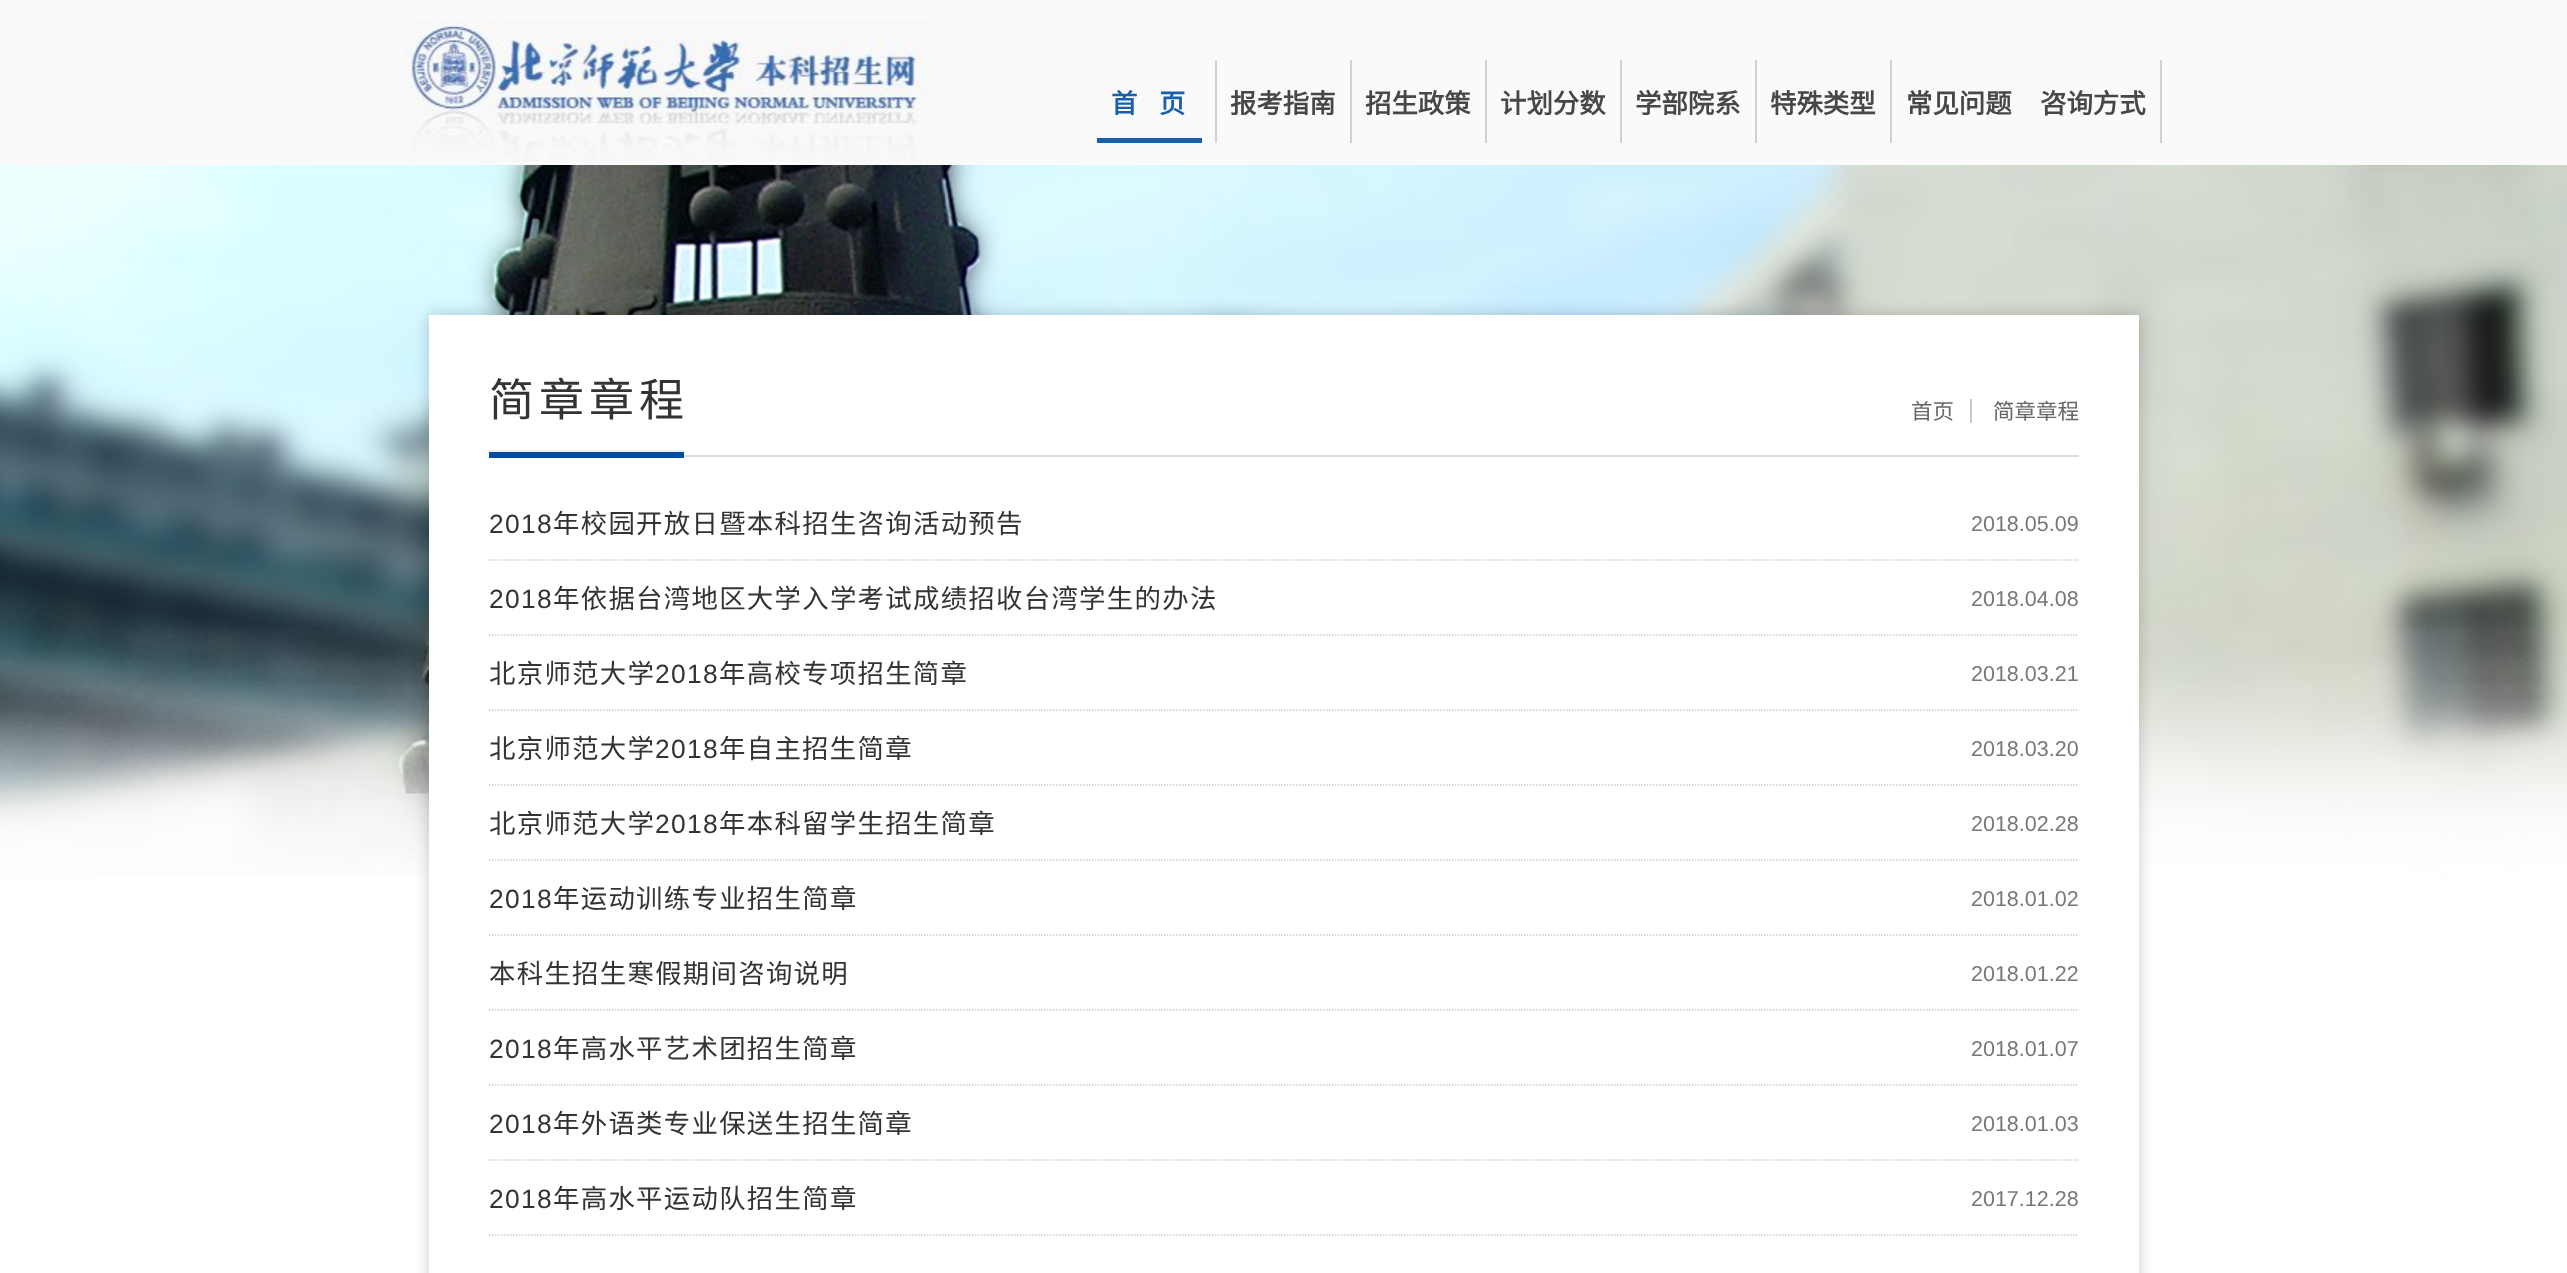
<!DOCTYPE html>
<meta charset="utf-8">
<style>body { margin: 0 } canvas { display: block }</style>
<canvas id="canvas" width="2567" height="1273"></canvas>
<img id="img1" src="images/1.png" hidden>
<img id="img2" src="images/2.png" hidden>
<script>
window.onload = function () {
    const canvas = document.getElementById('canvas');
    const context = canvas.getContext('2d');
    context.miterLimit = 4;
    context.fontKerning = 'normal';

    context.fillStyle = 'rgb(255, 255, 255)';
    context.fillRect(0, 0, 2567, 1273);
    context.fillStyle = 'rgb(250, 250, 250)';
    context.fillRect(0, 0, 2567, 165);
    context.drawImage(document.getElementById('img1'), 406, 17, 529, 145);
    context.fillStyle = 'rgb(209, 209, 209)';
    context.fillRect(1215, 60, 2, 83);
    context.fillRect(1350, 60, 2, 83);
    context.fillRect(1485, 60, 2, 83);
    context.fillRect(1620, 60, 2, 83);
    context.fillRect(1755, 60, 2, 83);
    context.fillRect(1890, 60, 2, 83);
    context.fillRect(2160, 60, 2, 83);
    context.fillStyle = 'rgb(26, 95, 170)';
    context.fillRect(1097, 138, 105, 5);
    context.drawImage(document.getElementById('img2'), 0, 165, 2567, 712);
    context.fillStyle = 'rgba(0, 0, 0, 0.2)';
    context.filter = 'blur(7.5px)';
    context.beginPath();
    context.rect(429, 315, 1710, 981);
    context.fill();
    context.filter = 'none';
    context.fillStyle = 'rgb(255, 255, 255)';
    context.fillRect(429, 315, 1710, 958);
    context.fillStyle = 'rgb(221, 221, 221)';
    context.fillRect(684, 455, 1395, 2);
    context.fillStyle = 'rgb(204, 204, 204)';
    context.fillRect(1970, 399, 2, 24);
    context.fillStyle = 'rgb(1, 77, 161)';
    context.fillRect(489, 452, 195, 6);
    context.fillStyle = 'rgb(238, 238, 238)';
    context.fillRect(489, 450, 195, 2);
    context.beginPath();
    context.moveTo(489, 560);
    context.lineTo(2079, 560);
    context.strokeStyle = 'rgb(204, 204, 204)';
    context.lineWidth = 1.5;
    context.setLineDash([1.5, 1.5]);
    context.stroke();
    context.beginPath();
    context.moveTo(489, 635);
    context.lineTo(2079, 635);
    context.stroke();
    context.beginPath();
    context.moveTo(489, 710);
    context.lineTo(2079, 710);
    context.stroke();
    context.beginPath();
    context.moveTo(489, 785);
    context.lineTo(2079, 785);
    context.stroke();
    context.beginPath();
    context.moveTo(489, 860);
    context.lineTo(2079, 860);
    context.stroke();
    context.beginPath();
    context.moveTo(489, 935);
    context.lineTo(2079, 935);
    context.stroke();
    context.beginPath();
    context.moveTo(489, 1010);
    context.lineTo(2079, 1010);
    context.stroke();
    context.beginPath();
    context.moveTo(489, 1085);
    context.lineTo(2079, 1085);
    context.stroke();
    context.beginPath();
    context.moveTo(489, 1160);
    context.lineTo(2079, 1160);
    context.stroke();
    context.beginPath();
    context.moveTo(489, 1235);
    context.lineTo(2079, 1235);
    context.stroke();
    context.font = 'bold 26.4px Noto Sans CJK SC';
    context.fillStyle = 'rgb(26, 95, 170)';
    context.fillText('首', 1111, 113);
    context.fillText('页', 1159, 113);
    context.fillStyle = 'rgb(71, 71, 71)';
    context.fillText('报考指南', 1230, 113);
    context.fillText('招生政策', 1365, 113);
    context.fillText('计划分数', 1500, 113);
    context.fillText('学部院系', 1635, 113);
    context.fillText('特殊类型', 1770, 113);
    context.fillText('常见问题', 1906, 113);
    context.fillText('咨询方式', 2040, 113);
    context.letterSpacing = '5px';
    context.font = '45px Noto Sans CJK SC';
    context.fillStyle = 'rgb(51, 51, 51)';
    context.fillText('简章章程', 489, 416);
    context.letterSpacing = '0px';
    context.font = '21.5px Noto Sans CJK SC';
    context.fillStyle = 'rgb(102, 102, 102)';
    context.fillText('首页', 1911, 419);
    context.fillText('简章章程', 1993, 419);
    context.letterSpacing = '1.3px';
    context.font = '26.4px Liberation Sans';
    context.fillStyle = 'rgb(51, 51, 51)';
    context.fillText('2018', 489, 533);
    context.font = '26.4px Noto Sans CJK SC';
    context.fillText('年校园开放日暨本科招生咨询活动预告', 553, 533);
    context.letterSpacing = '0px';
    context.font = '21.5px Liberation Sans';
    context.fillStyle = 'rgb(119, 119, 119)';
    context.fillText('2018.05.09', 1971, 531);
    context.letterSpacing = '1.3px';
    context.font = '26.4px Liberation Sans';
    context.fillStyle = 'rgb(51, 51, 51)';
    context.fillText('2018', 489, 608);
    context.font = '26.4px Noto Sans CJK SC';
    context.fillText('年依据台湾地区大学入学考试成绩招收台湾学生的办法', 553, 608);
    context.letterSpacing = '0px';
    context.font = '21.5px Liberation Sans';
    context.fillStyle = 'rgb(119, 119, 119)';
    context.fillText('2018.04.08', 1971, 606);
    context.letterSpacing = '1.3px';
    context.font = '26.4px Noto Sans CJK SC';
    context.fillStyle = 'rgb(51, 51, 51)';
    context.fillText('北京师范大学', 489, 683);
    context.font = '26.4px Liberation Sans';
    context.fillText('2018', 655, 683);
    context.font = '26.4px Noto Sans CJK SC';
    context.fillText('年高校专项招生简章', 719, 683);
    context.letterSpacing = '0px';
    context.font = '21.5px Liberation Sans';
    context.fillStyle = 'rgb(119, 119, 119)';
    context.fillText('2018.03.21', 1971, 681);
    context.letterSpacing = '1.3px';
    context.font = '26.4px Noto Sans CJK SC';
    context.fillStyle = 'rgb(51, 51, 51)';
    context.fillText('北京师范大学', 489, 758);
    context.font = '26.4px Liberation Sans';
    context.fillText('2018', 655, 758);
    context.font = '26.4px Noto Sans CJK SC';
    context.fillText('年自主招生简章', 719, 758);
    context.letterSpacing = '0px';
    context.font = '21.5px Liberation Sans';
    context.fillStyle = 'rgb(119, 119, 119)';
    context.fillText('2018.03.20', 1971, 756);
    context.letterSpacing = '1.3px';
    context.font = '26.4px Noto Sans CJK SC';
    context.fillStyle = 'rgb(51, 51, 51)';
    context.fillText('北京师范大学', 489, 833);
    context.font = '26.4px Liberation Sans';
    context.fillText('2018', 655, 833);
    context.font = '26.4px Noto Sans CJK SC';
    context.fillText('年本科留学生招生简章', 719, 833);
    context.letterSpacing = '0px';
    context.font = '21.5px Liberation Sans';
    context.fillStyle = 'rgb(119, 119, 119)';
    context.fillText('2018.02.28', 1971, 831);
    context.letterSpacing = '1.3px';
    context.font = '26.4px Liberation Sans';
    context.fillStyle = 'rgb(51, 51, 51)';
    context.fillText('2018', 489, 908);
    context.font = '26.4px Noto Sans CJK SC';
    context.fillText('年运动训练专业招生简章', 553, 908);
    context.letterSpacing = '0px';
    context.font = '21.5px Liberation Sans';
    context.fillStyle = 'rgb(119, 119, 119)';
    context.fillText('2018.01.02', 1971, 906);
    context.letterSpacing = '1.3px';
    context.font = '26.4px Noto Sans CJK SC';
    context.fillStyle = 'rgb(51, 51, 51)';
    context.fillText('本科生招生寒假期间咨询说明', 489, 983);
    context.letterSpacing = '0px';
    context.font = '21.5px Liberation Sans';
    context.fillStyle = 'rgb(119, 119, 119)';
    context.fillText('2018.01.22', 1971, 981);
    context.letterSpacing = '1.3px';
    context.font = '26.4px Liberation Sans';
    context.fillStyle = 'rgb(51, 51, 51)';
    context.fillText('2018', 489, 1058);
    context.font = '26.4px Noto Sans CJK SC';
    context.fillText('年高水平艺术团招生简章', 553, 1058);
    context.letterSpacing = '0px';
    context.font = '21.5px Liberation Sans';
    context.fillStyle = 'rgb(119, 119, 119)';
    context.fillText('2018.01.07', 1971, 1056);
    context.letterSpacing = '1.3px';
    context.font = '26.4px Liberation Sans';
    context.fillStyle = 'rgb(51, 51, 51)';
    context.fillText('2018', 489, 1133);
    context.font = '26.4px Noto Sans CJK SC';
    context.fillText('年外语类专业保送生招生简章', 553, 1133);
    context.letterSpacing = '0px';
    context.font = '21.5px Liberation Sans';
    context.fillStyle = 'rgb(119, 119, 119)';
    context.fillText('2018.01.03', 1971, 1131);
    context.letterSpacing = '1.3px';
    context.font = '26.4px Liberation Sans';
    context.fillStyle = 'rgb(51, 51, 51)';
    context.fillText('2018', 489, 1208);
    context.font = '26.4px Noto Sans CJK SC';
    context.fillText('年高水平运动队招生简章', 553, 1208);
    context.letterSpacing = '0px';
    context.font = '21.5px Liberation Sans';
    context.fillStyle = 'rgb(119, 119, 119)';
    context.fillText('2017.12.28', 1971, 1206);
};
</script>
